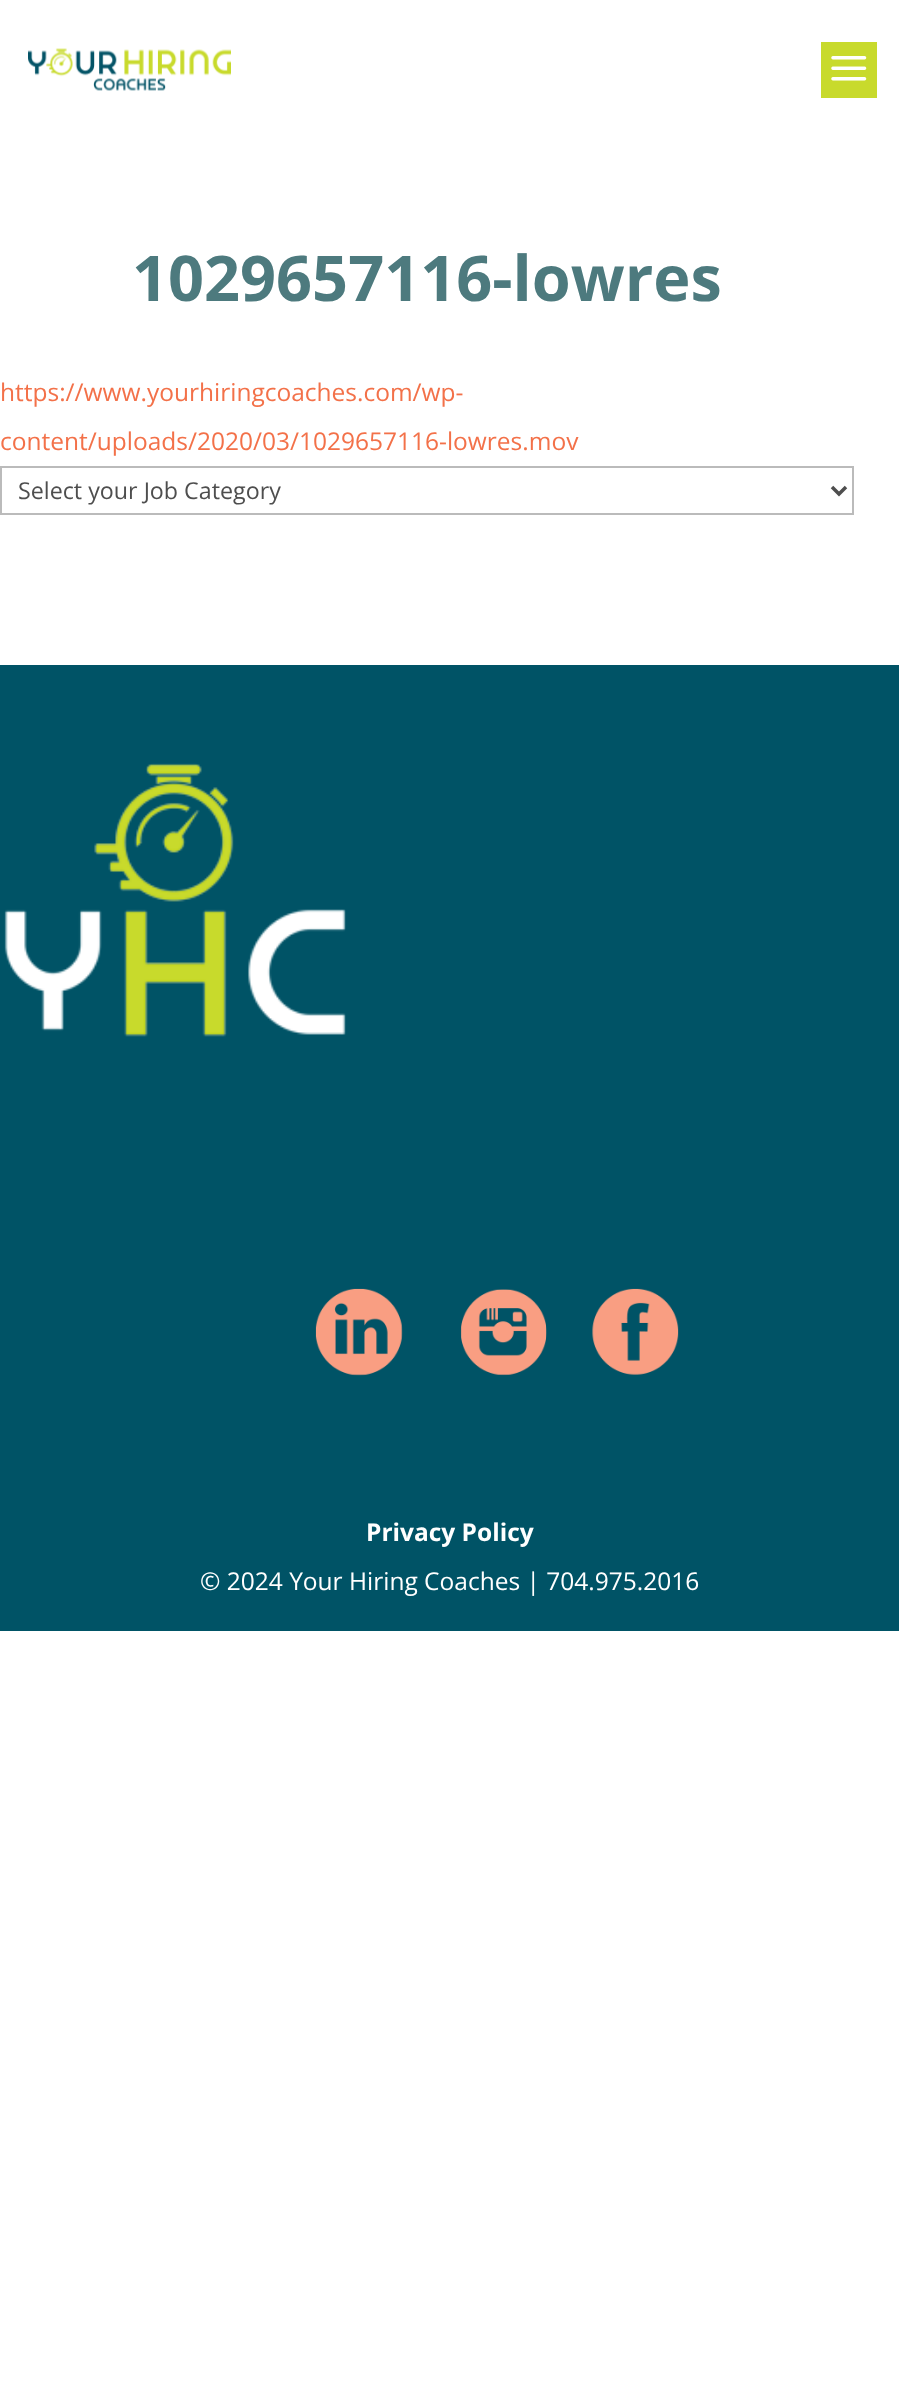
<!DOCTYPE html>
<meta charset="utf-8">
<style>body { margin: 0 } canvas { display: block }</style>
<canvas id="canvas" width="899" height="2405"></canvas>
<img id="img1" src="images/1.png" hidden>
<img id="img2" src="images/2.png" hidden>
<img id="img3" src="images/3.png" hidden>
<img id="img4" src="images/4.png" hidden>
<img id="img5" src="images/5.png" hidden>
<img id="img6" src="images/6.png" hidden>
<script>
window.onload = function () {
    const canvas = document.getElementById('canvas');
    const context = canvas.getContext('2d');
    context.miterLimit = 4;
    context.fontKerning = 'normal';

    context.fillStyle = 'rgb(255, 255, 255)';
    context.fillRect(0, 0, 899, 2405);
    context.drawImage(document.getElementById('img1'), 28, 48, 203, 43);
    context.fillStyle = 'rgb(200, 218, 44)';
    context.fillRect(821, 42, 56, 56);
    context.drawImage(document.getElementById('img2'), 831, 56, 36, 25);
    context.strokeStyle = 'rgb(187, 187, 187)';
    context.lineWidth = 2;
    context.strokeRect(1, 467, 852, 47);
    context.beginPath();
    context.moveTo(832, 487);
    context.lineTo(839, 494);
    context.lineTo(846, 487);
    context.strokeStyle = 'rgb(78, 78, 78)';
    context.lineWidth = 3.5;
    context.stroke();
    context.fillStyle = 'rgb(0, 83, 102)';
    context.fillRect(0, 665, 899, 966);
    context.drawImage(document.getElementById('img3'), 4, 763, 342, 274);
    context.drawImage(document.getElementById('img4'), 315, 1288, 88, 88);
    context.drawImage(document.getElementById('img5'), 460, 1289, 87, 87);
    context.drawImage(document.getElementById('img6'), 592, 1288, 87, 87);
    context.font = 'bold 63px Open Sans';
    context.fillStyle = 'rgb(77, 122, 126)';
    context.fillText('1029657116-lowres', 132, 301);
    context.font = '24.5px Open Sans';
    context.fillStyle = 'rgb(243, 113, 73)';
    context.fillText('https://www.yourhiringcoaches.com/wp-', 0, 401);
    context.fillText('content/uploads/2020/03/1029657116-lowres.mov', 0, 450);
    context.font = '23.25px Open Sans';
    context.fillStyle = 'rgb(78, 78, 78)';
    context.fillText('Select your Job Category', 18, 499);
    context.font = 'bold 24.5px Open Sans';
    context.fillStyle = 'rgb(255, 255, 255)';
    context.fillText('Privacy Policy', 366, 1541);
    context.font = '24.5px Open Sans';
    context.fillText('© 2024 Your Hiring Coaches | 704.975.2016', 200, 1590);
};
</script>
